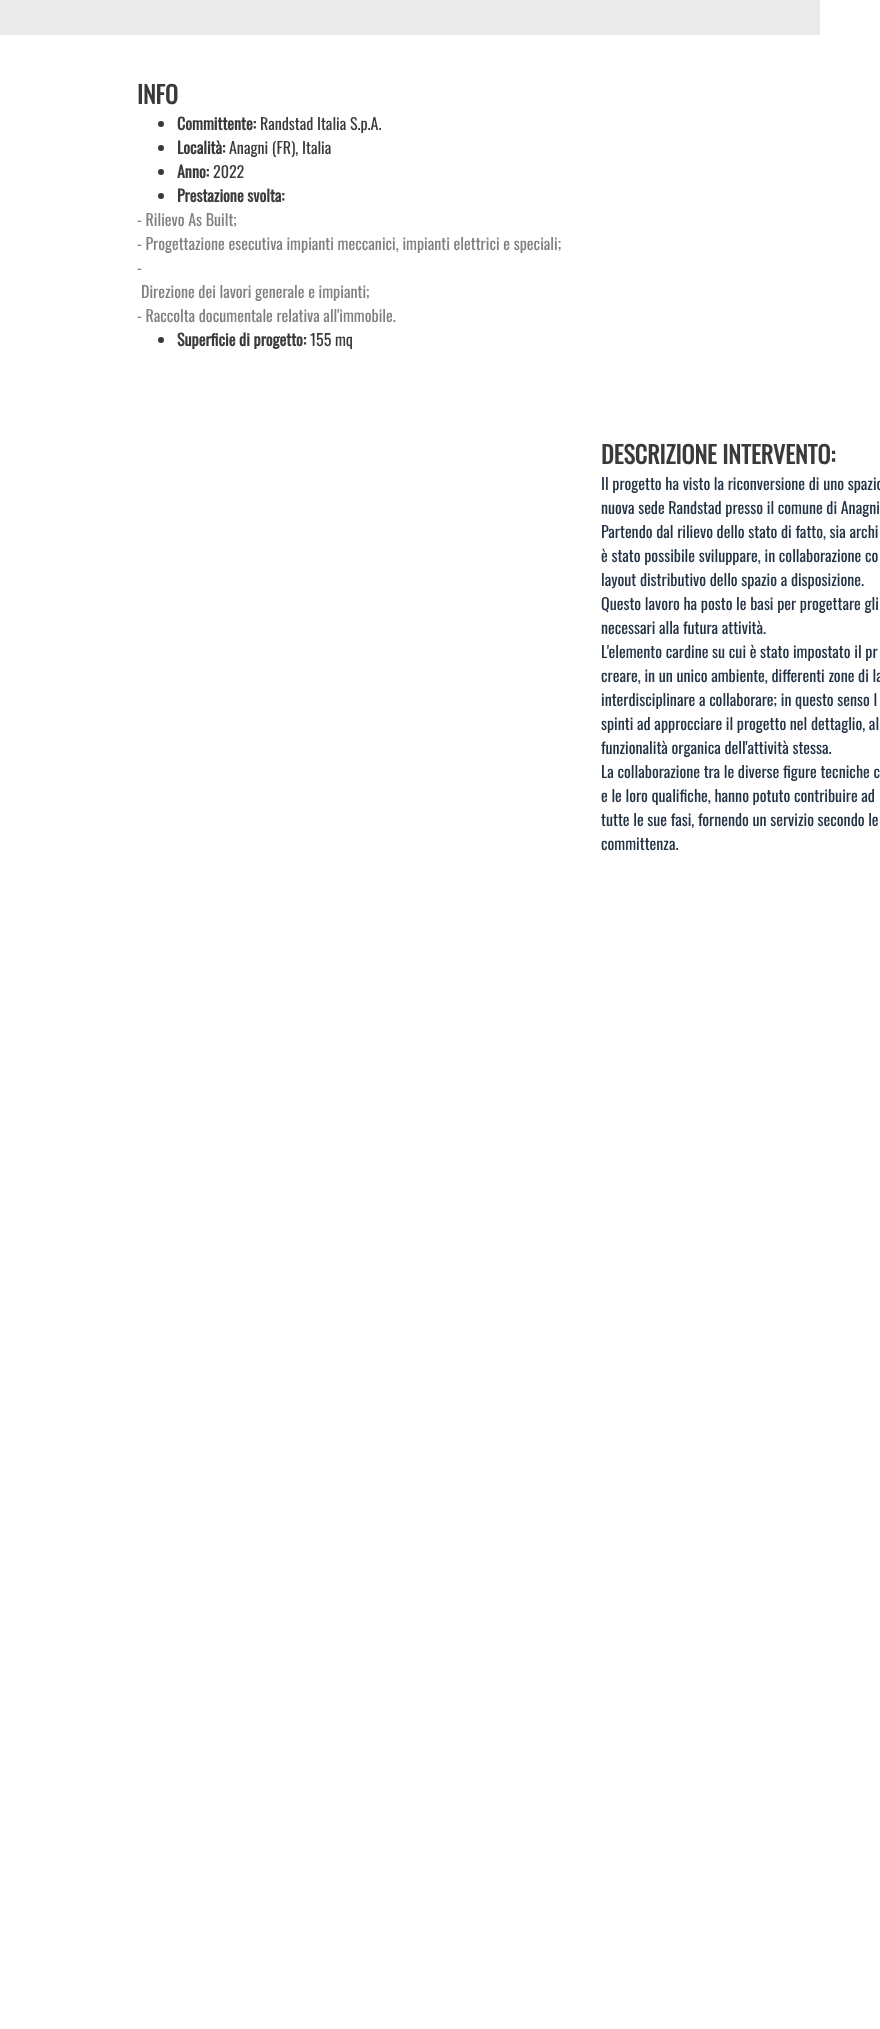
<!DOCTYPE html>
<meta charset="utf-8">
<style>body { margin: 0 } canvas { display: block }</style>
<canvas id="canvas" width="880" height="2029"></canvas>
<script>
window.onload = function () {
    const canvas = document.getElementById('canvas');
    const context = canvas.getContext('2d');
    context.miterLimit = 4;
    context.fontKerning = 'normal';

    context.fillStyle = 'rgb(255, 255, 255)';
    context.fillRect(0, 0, 880, 2029);
    context.fillStyle = 'rgb(234, 234, 234)';
    context.fillRect(0, 0, 820, 35);
    context.fillStyle = 'rgb(58, 58, 58)';
    context.beginPath();
    context.arc(161, 124, 3, 0, 2 * Math.PI);
    context.fill();
    context.beginPath();
    context.arc(161, 148, 3, 0, 2 * Math.PI);
    context.fill();
    context.beginPath();
    context.arc(161, 172, 3, 0, 2 * Math.PI);
    context.fill();
    context.beginPath();
    context.arc(161, 196, 3, 0, 2 * Math.PI);
    context.fill();
    context.beginPath();
    context.arc(161, 340, 3, 0, 2 * Math.PI);
    context.fill();
    context.font = 'bold 24px Oswald';
    context.fillText('INFO', 137, 104);
    context.font = 'bold 16px Oswald';
    context.fillText('Committente:', 177, 130);
    context.font = '16px Oswald';
    context.fillText('Randstad Italia S.p.A.', 260, 130);
    context.font = 'bold 16px Oswald';
    context.fillText('Località:', 177, 154);
    context.font = '16px Oswald';
    context.fillText('Anagni (FR), Italia', 229, 154);
    context.font = 'bold 16px Oswald';
    context.fillText('Anno:', 177, 178);
    context.font = '16px Oswald';
    context.fillText('2022', 213, 178);
    context.font = 'bold 16px Oswald';
    context.fillText('Prestazione svolta:', 177, 202);
    context.font = '16px Oswald';
    context.fillStyle = 'rgb(127, 127, 127)';
    context.fillText('- Rilievo As Built;', 137, 226);
    context.fillText('- Progettazione esecutiva impianti meccanici, impianti elettrici e speciali;', 137, 250);
    context.fillText('-', 137, 274);
    context.fillText('Direzione dei lavori generale e impianti;', 141, 298);
    context.fillText('- Raccolta documentale relativa all\'immobile.', 137, 322);
    context.font = 'bold 16px Oswald';
    context.fillStyle = 'rgb(58, 58, 58)';
    context.fillText('Superficie di progetto:', 177, 346);
    context.font = '16px Oswald';
    context.fillText('155 mq', 310, 346);
    context.font = 'bold 24px Oswald';
    context.fillText('DESCRIZIONE INTERVENTO:', 601, 464);
    context.font = '16px Oswald';
    context.fillStyle = 'rgb(35, 51, 68)';
    context.fillText('Il progetto ha visto la riconversione di uno spazio', 601, 490);
    context.fillText('nuova sede Randstad presso il comune di Anagni', 601, 514);
    context.fillText('Partendo dal rilievo dello stato di fatto, sia archi', 601, 538);
    context.fillText('è stato possibile sviluppare, in collaborazione co', 601, 562);
    context.fillText('layout distributivo dello spazio a disposizione.', 601, 586);
    context.fillText('Questo lavoro ha posto le basi per progettare gli', 601, 610);
    context.fillText('necessari alla futura attività.', 601, 634);
    context.fillText('L\'elemento cardine su cui è stato impostato il pr', 601, 658);
    context.fillText('creare, in un unico ambiente, differenti zone di la', 601, 682);
    context.fillText('interdisciplinare a collaborare; in questo senso l', 601, 706);
    context.fillText('spinti ad approcciare il progetto nel dettaglio, al', 601, 730);
    context.fillText('funzionalità organica dell\'attività stessa.', 601, 754);
    context.fillText('La collaborazione tra le diverse figure tecniche c', 601, 778);
    context.fillText('e le loro qualifiche, hanno potuto contribuire ad', 601, 802);
    context.fillText('tutte le sue fasi, fornendo un servizio secondo le', 601, 826);
    context.fillText('committenza.', 601, 850);
};
</script>
